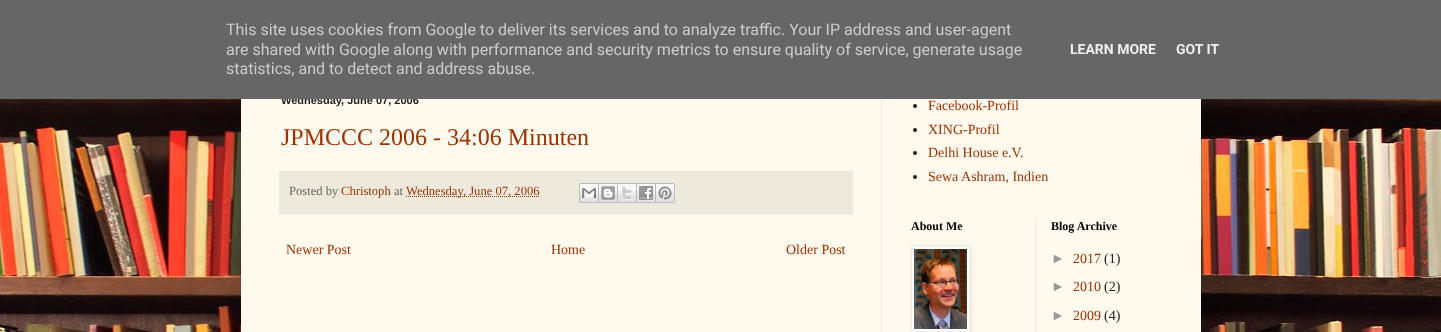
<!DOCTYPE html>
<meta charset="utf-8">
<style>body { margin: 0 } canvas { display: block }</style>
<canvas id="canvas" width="1441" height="332"></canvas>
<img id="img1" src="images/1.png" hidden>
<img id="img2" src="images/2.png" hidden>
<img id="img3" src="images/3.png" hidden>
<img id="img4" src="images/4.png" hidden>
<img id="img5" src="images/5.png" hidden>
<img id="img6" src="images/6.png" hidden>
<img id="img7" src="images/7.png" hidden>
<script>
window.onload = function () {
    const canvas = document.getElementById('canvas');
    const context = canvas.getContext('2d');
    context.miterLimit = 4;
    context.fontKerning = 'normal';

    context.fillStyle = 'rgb(255, 255, 255)';
    context.fillRect(0, 0, 1441, 332);
    context.drawImage(document.getElementById('img1'), 0, 99, 1441, 233);
    context.fillStyle = 'rgba(0, 0, 0, 0.15)';
    context.filter = 'blur(20px)';
    context.beginPath();
    context.rect(241, -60, 960, 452);
    context.fill();
    context.filter = 'none';
    context.fillStyle = 'rgb(255, 249, 238)';
    context.fillRect(241, 99, 960, 233);
    context.fillStyle = 'rgb(238, 229, 221)';
    context.fillRect(881, 94, 1, 238);
    context.fillStyle = 'rgb(238, 233, 221)';
    context.fillRect(279, 171, 574, 43);
    context.fillStyle = 'rgb(238, 238, 238)';
    context.fillRect(279, 214, 574, 1);
    context.beginPath();
    context.moveTo(406, 196.5);
    context.lineTo(539.5, 196.5);
    context.strokeStyle = 'rgb(153, 51, 0)';
    context.setLineDash([1, 1]);
    context.stroke();
    context.drawImage(document.getElementById('img2'), 579, 183, 20, 20);
    context.drawImage(document.getElementById('img3'), 599, 183, 19, 20);
    context.drawImage(document.getElementById('img4'), 618, 183, 19, 20);
    context.drawImage(document.getElementById('img5'), 637, 183, 19, 20);
    context.drawImage(document.getElementById('img6'), 656, 183, 19, 20);
    context.fillStyle = 'rgb(34, 34, 34)';
    context.beginPath();
    context.arc(915, 106, 2, 0, 2 * Math.PI);
    context.fill();
    context.beginPath();
    context.arc(915, 130, 2, 0, 2 * Math.PI);
    context.fill();
    context.beginPath();
    context.arc(915, 153, 2, 0, 2 * Math.PI);
    context.fill();
    context.beginPath();
    context.arc(915, 177, 2, 0, 2 * Math.PI);
    context.fill();
    context.fillStyle = 'rgba(0, 0, 0, 0.1)';
    context.filter = 'blur(2.5px)';
    context.beginPath();
    context.rect(912, 247, 59, 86);
    context.fill();
    context.filter = 'none';
    context.fillStyle = 'rgb(255, 255, 255)';
    context.beginPath();
    context.rect(911.5, 246.5, 58, 85);
    context.fill();
    context.strokeStyle = 'rgb(238, 238, 238)';
    context.setLineDash([]);
    context.stroke();
    context.drawImage(document.getElementById('img7'), 914, 249, 53, 80);
    context.fillStyle = 'rgb(238, 229, 221)';
    context.fillRect(1035, 219, 1, 113);
    context.font = 'bold 11px Liberation Sans';
    context.fillStyle = 'rgb(34, 34, 34)';
    context.fillText('Wednesday, June 07, 2006', 281, 104);
    context.fillStyle = 'rgb(102, 102, 102)';
    context.fillRect(0, 0, 1441, 99);
    context.font = 'bold 14px Roboto';
    context.fillStyle = 'rgb(238, 238, 238)';
    context.fillText('GOT IT', 1176, 54);
    context.fillText('LEARN MORE', 1070, 54);
    context.font = '16px Roboto';
    context.fillStyle = 'rgb(204, 204, 204)';
    context.fillText('statistics, and to detect and address abuse.', 226, 74);
    context.fillText('are shared with Google along with performance and security metrics to ensure quality of service, generate usage', 226, 55);
    context.fillText('This site uses cookies from Google to deliver its services and to analyze traffic. Your IP address and user-agent', 226, 35);
    context.font = '24px Liberation Serif';
    context.fillStyle = 'rgb(153, 51, 0)';
    context.fillText('JPMCCC 2006 - 34:06 Minuten', 281, 145);
    context.font = '12.6px Liberation Serif';
    context.fillStyle = 'rgb(102, 101, 85)';
    context.fillText('Posted by', 289, 195);
    context.fillStyle = 'rgb(153, 51, 0)';
    context.fillText('Christoph', 341, 195);
    context.fillStyle = 'rgb(102, 101, 85)';
    context.fillText('at', 394, 195);
    context.fillStyle = 'rgb(153, 51, 0)';
    context.fillText('Wednesday, June 07, 2006', 406, 195);
    context.font = '14px Liberation Serif';
    context.fillText('Newer Post', 286, 254);
    context.fillText('Home', 551, 254);
    context.fillText('Older Post', 786, 254);
    context.fillText('Facebook-Profil', 928, 110);
    context.fillText('XING-Profil', 928, 134);
    context.fillText('Delhi House e.V.', 928, 157);
    context.fillText('Sewa Ashram, Indien', 928, 181);
    context.font = 'bold 12px Liberation Serif';
    context.fillStyle = 'rgb(0, 0, 0)';
    context.fillText('About Me', 911, 230);
    context.fillText('Blog Archive', 1051, 230);
    context.font = '14px Liberation Sans';
    context.fillStyle = 'rgb(153, 153, 153)';
    context.fillText('►', 1051, 263);
    context.font = '14px Liberation Serif';
    context.fillStyle = 'rgb(153, 51, 0)';
    context.fillText('2017', 1073, 263);
    context.fillStyle = 'rgb(34, 34, 34)';
    context.fillText('(1)', 1104, 263);
    context.font = '14px Liberation Sans';
    context.fillStyle = 'rgb(153, 153, 153)';
    context.fillText('►', 1051, 291);
    context.font = '14px Liberation Serif';
    context.fillStyle = 'rgb(153, 51, 0)';
    context.fillText('2010', 1073, 291);
    context.fillStyle = 'rgb(34, 34, 34)';
    context.fillText('(2)', 1104, 291);
    context.font = '14px Liberation Sans';
    context.fillStyle = 'rgb(153, 153, 153)';
    context.fillText('►', 1051, 320);
    context.font = '14px Liberation Serif';
    context.fillStyle = 'rgb(153, 51, 0)';
    context.fillText('2009', 1073, 320);
    context.fillStyle = 'rgb(34, 34, 34)';
    context.fillText('(4)', 1104, 320);
};
</script>
